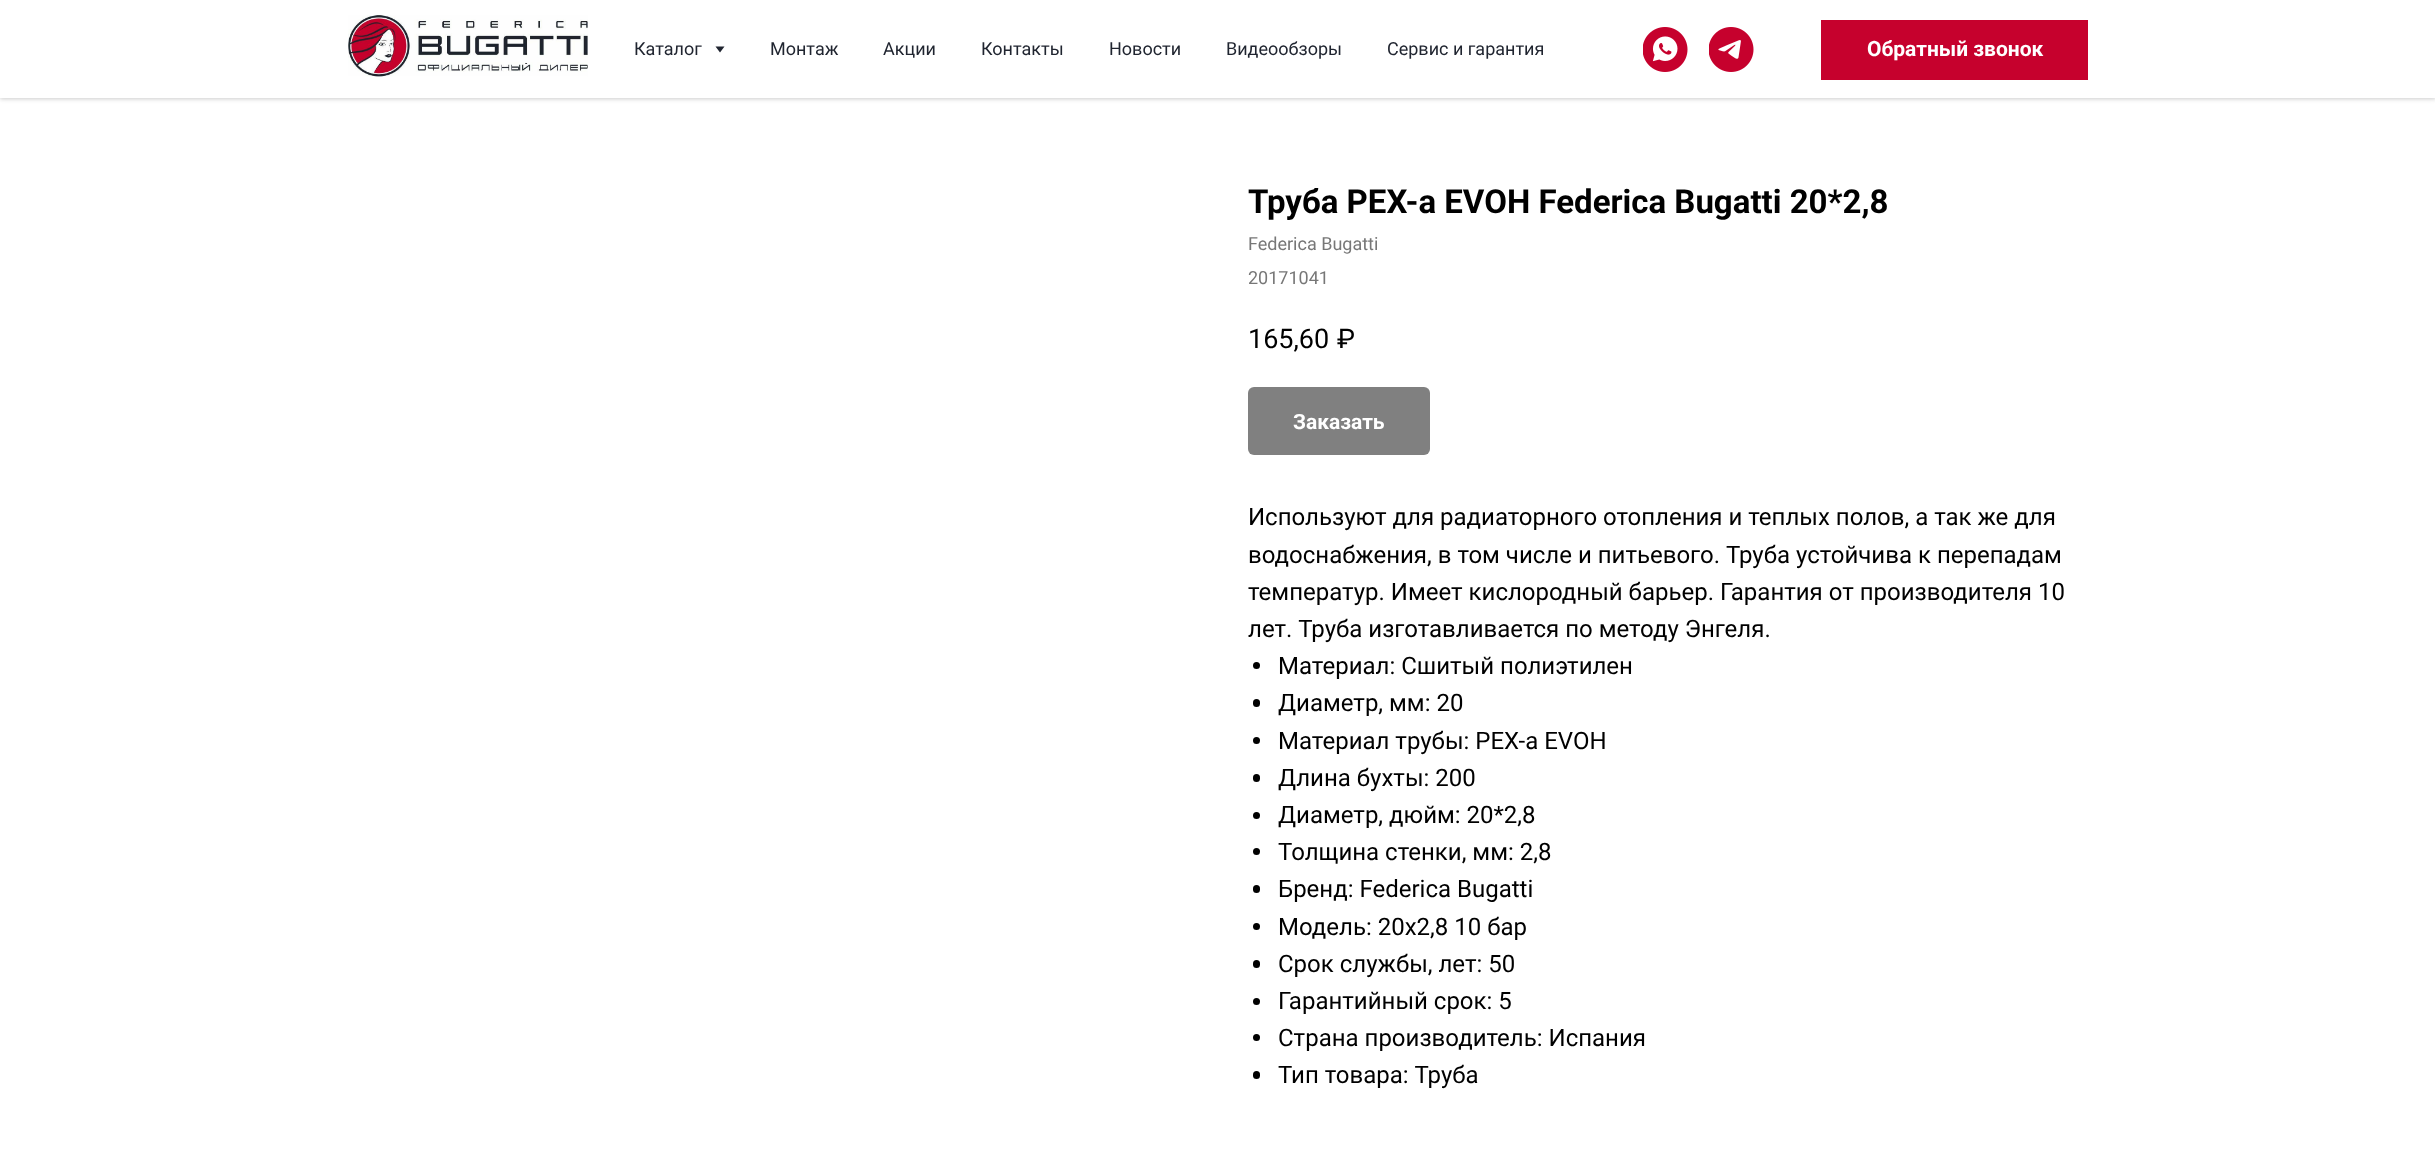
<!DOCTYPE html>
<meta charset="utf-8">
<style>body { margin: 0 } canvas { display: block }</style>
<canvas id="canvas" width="2435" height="1166"></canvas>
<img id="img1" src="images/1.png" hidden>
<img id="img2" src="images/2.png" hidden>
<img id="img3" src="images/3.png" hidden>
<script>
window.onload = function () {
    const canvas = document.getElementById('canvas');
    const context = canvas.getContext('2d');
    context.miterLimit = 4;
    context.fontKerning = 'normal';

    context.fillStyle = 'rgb(255, 255, 255)';
    context.fillRect(0, 0, 2435, 1166);
    context.fillStyle = 'rgba(0, 0, 0, 0.2)';
    context.filter = 'blur(2px)';
    context.beginPath();
    context.rect(0, 2, 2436, 97);
    context.fill();
    context.filter = 'none';
    context.fillStyle = 'rgb(255, 255, 255)';
    context.fillRect(0, 0, 2435, 98);
    context.drawImage(document.getElementById('img1'), 348, 15, 240, 62);
    context.fillStyle = 'rgb(32, 37, 48)';
    context.beginPath();
    context.moveTo(715.5, 46.5);
    context.lineTo(724.5, 46.5);
    context.lineTo(720, 52.5);
    context.closePath();
    context.fill();
    context.drawImage(document.getElementById('img2'), 1643, 27, 45, 45);
    context.drawImage(document.getElementById('img3'), 1709, 27, 45, 45);
    context.fillStyle = 'rgb(198, 1, 45)';
    context.fillRect(1821, 20, 267, 60);
    context.fillStyle = 'rgb(128, 128, 128)';
    context.beginPath();
    context.roundRect(1248, 387, 182, 68, 6);
    context.fill();
    context.fillStyle = 'rgb(0, 0, 0)';
    context.beginPath();
    context.arc(1256.5, 665.5, 3.5, 0, 2 * Math.PI);
    context.fill();
    context.beginPath();
    context.roundRect(1253, 699, 7, 8, 3.5);
    context.fill();
    context.beginPath();
    context.arc(1256.5, 740.5, 3.5, 0, 2 * Math.PI);
    context.fill();
    context.beginPath();
    context.roundRect(1253, 774, 7, 8, 3.5);
    context.fill();
    context.beginPath();
    context.arc(1256.5, 815.5, 3.5, 0, 2 * Math.PI);
    context.fill();
    context.beginPath();
    context.arc(1256.5, 851.5, 3.5, 0, 2 * Math.PI);
    context.fill();
    context.beginPath();
    context.roundRect(1253, 885, 7, 8, 3.5);
    context.fill();
    context.beginPath();
    context.arc(1256.5, 926.5, 3.5, 0, 2 * Math.PI);
    context.fill();
    context.beginPath();
    context.roundRect(1253, 960, 7, 8, 3.5);
    context.fill();
    context.beginPath();
    context.arc(1256.5, 1001.5, 3.5, 0, 2 * Math.PI);
    context.fill();
    context.beginPath();
    context.arc(1256.5, 1037.5, 3.5, 0, 2 * Math.PI);
    context.fill();
    context.beginPath();
    context.roundRect(1253, 1071, 7, 8, 3.5);
    context.fill();
    context.font = '18px Roboto';
    context.fillStyle = 'rgb(32, 37, 48)';
    context.fillText('Каталог', 634, 55);
    context.fillText('Монтаж', 770, 55);
    context.fillText('Акции', 883, 55);
    context.fillText('Контакты', 981, 55);
    context.fillText('Новости', 1109, 55);
    context.fillText('Видеообзоры', 1226, 55);
    context.fillText('Сервис и гарантия', 1387, 55);
    context.font = 'bold 21px Roboto';
    context.fillStyle = 'rgb(255, 255, 255)';
    context.fillText('Обратный звонок', 1867, 56);
    context.font = 'bold 33px Roboto';
    context.fillStyle = 'rgb(0, 0, 0)';
    context.fillText('Труба PEX-a EVOH Federica Bugatti 20*2,8', 1248, 213);
    context.font = '18px Roboto';
    context.fillStyle = 'rgb(119, 119, 119)';
    context.fillText('Federica Bugatti', 1248, 250);
    context.fillText('20171041', 1248, 284);
    context.font = '27px Roboto';
    context.fillStyle = 'rgb(0, 0, 0)';
    context.fillText('165,60', 1248, 348);
    context.fillText('₽', 1337, 348);
    context.font = 'bold 21px Roboto';
    context.fillStyle = 'rgb(255, 255, 255)';
    context.fillText('Заказать', 1293, 429);
    context.font = '24px Roboto';
    context.fillStyle = 'rgb(0, 0, 0)';
    context.fillText('Используют для радиаторного отопления и теплых полов, а так же для', 1248, 525);
    context.fillText('водоснабжения, в том числе и питьевого. Труба устойчива к перепадам', 1248, 563);
    context.fillText('температур. Имеет кислородный барьер. Гарантия от производителя 10', 1248, 600);
    context.fillText('лет. Труба изготавливается по методу Энгеля.', 1248, 637);
    context.fillText('Материал: Сшитый полиэтилен', 1278, 674);
    context.fillText('Диаметр, мм: 20', 1278, 711);
    context.fillText('Материал трубы: PEX-a EVOH', 1278, 749);
    context.fillText('Длина бухты: 200', 1278, 786);
    context.fillText('Диаметр, дюйм: 20*2,8', 1278, 823);
    context.fillText('Толщина стенки, мм: 2,8', 1278, 860);
    context.fillText('Бренд: Federica Bugatti', 1278, 897);
    context.fillText('Модель: 20x2,8 10 бар', 1278, 935);
    context.fillText('Срок службы, лет: 50', 1278, 972);
    context.fillText('Гарантийный срок: 5', 1278, 1009);
    context.fillText('Страна производитель: Испания', 1278, 1046);
    context.fillText('Тип товара: Труба', 1278, 1083);
};
</script>
